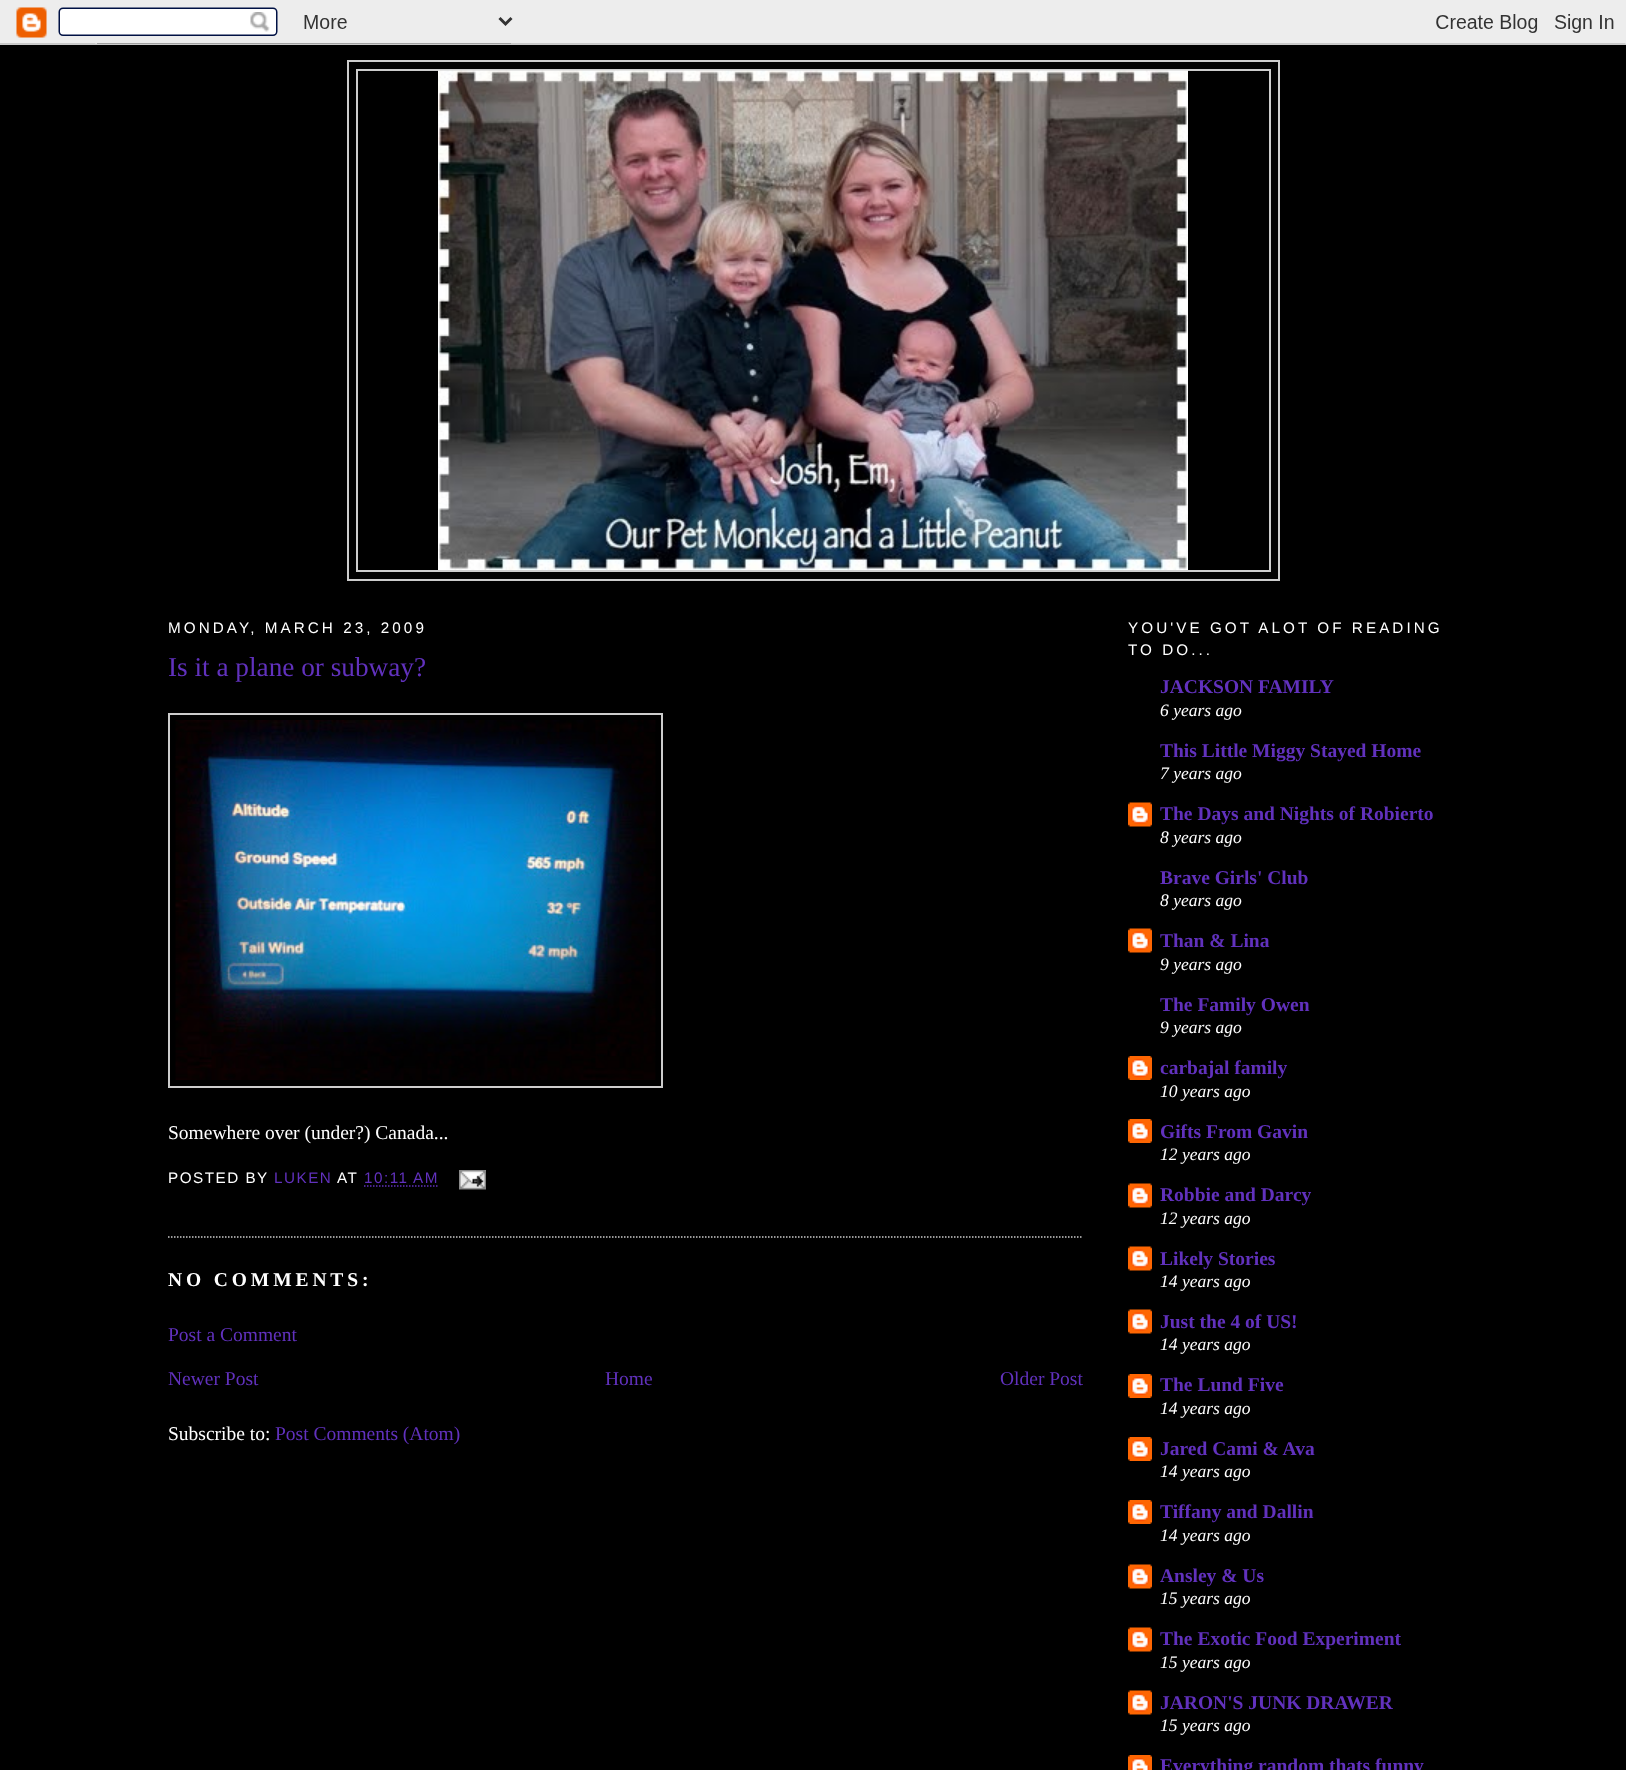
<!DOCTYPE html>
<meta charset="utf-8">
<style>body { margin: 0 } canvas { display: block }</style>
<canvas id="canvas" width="1626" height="1770"></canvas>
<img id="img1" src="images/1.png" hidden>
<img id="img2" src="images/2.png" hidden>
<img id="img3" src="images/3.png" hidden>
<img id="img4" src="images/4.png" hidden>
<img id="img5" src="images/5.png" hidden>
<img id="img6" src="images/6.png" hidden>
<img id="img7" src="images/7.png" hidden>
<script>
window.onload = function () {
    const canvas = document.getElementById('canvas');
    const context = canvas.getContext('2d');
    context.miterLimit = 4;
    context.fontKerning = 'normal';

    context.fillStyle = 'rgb(0, 0, 0)';
    context.fillRect(0, 0, 1626, 1770);
    context.drawImage(document.getElementById('img1'), 0, 0, 1626, 45);
    context.strokeStyle = 'rgb(204, 204, 204)';
    context.lineWidth = 2;
    context.strokeRect(348, 61, 931, 519);
    context.strokeRect(357, 70, 913, 501);
    context.drawImage(document.getElementById('img2'), 438, 70, 750, 500);
    context.beginPath();
    context.moveTo(168, 1237);
    context.lineTo(1083, 1237);
    context.lineWidth = 1.5;
    context.setLineDash([1.5, 1.5]);
    context.stroke();
    context.lineWidth = 2;
    context.setLineDash([]);
    context.strokeRect(169, 714, 493, 373);
    context.drawImage(document.getElementById('img3'), 175, 720, 481, 360);
    context.beginPath();
    context.moveTo(364, 1186);
    context.lineTo(439, 1186);
    context.strokeStyle = 'rgb(97, 49, 189)';
    context.lineWidth = 1.5;
    context.setLineDash([1.5, 1.5]);
    context.stroke();
    context.drawImage(document.getElementById('img4'), 459, 1170, 27, 20);
    context.drawImage(document.getElementById('img5'), 1128, 802, 24, 25);
    context.drawImage(document.getElementById('img5'), 1128, 928, 24, 25);
    context.drawImage(document.getElementById('img6'), 1128, 1056, 24, 24);
    context.drawImage(document.getElementById('img6'), 1128, 1119, 24, 24);
    context.drawImage(document.getElementById('img5'), 1128, 1183, 24, 25);
    context.drawImage(document.getElementById('img5'), 1128, 1246, 24, 25);
    context.drawImage(document.getElementById('img5'), 1128, 1309, 24, 25);
    context.drawImage(document.getElementById('img6'), 1128, 1374, 24, 24);
    context.drawImage(document.getElementById('img6'), 1128, 1437, 24, 24);
    context.drawImage(document.getElementById('img6'), 1128, 1500, 24, 24);
    context.drawImage(document.getElementById('img5'), 1128, 1564, 24, 25);
    context.drawImage(document.getElementById('img5'), 1128, 1627, 24, 25);
    context.drawImage(document.getElementById('img5'), 1128, 1690, 24, 25);
    context.drawImage(document.getElementById('img7'), 1128, 1755, 24, 15);
    context.letterSpacing = '3.05px';
    context.font = '15.25px Liberation Sans';
    context.fillStyle = 'rgb(255, 255, 255)';
    context.fillText('MONDAY, MARCH 23, 2009', 168, 633);
    context.letterSpacing = '0px';
    context.font = '27.25px Liberation Serif';
    context.fillStyle = 'rgb(97, 49, 189)';
    context.fillText('Is it a plane or subway?', 168, 676);
    context.font = '19.5px Liberation Serif';
    context.fillStyle = 'rgb(255, 255, 255)';
    context.fillText('Somewhere over (under?) Canada...', 168, 1139);
    context.letterSpacing = '1.5px';
    context.font = '15.25px Liberation Sans';
    context.fillText('POSTED BY', 168, 1183);
    context.fillStyle = 'rgb(97, 49, 189)';
    context.fillText('LUKEN', 274, 1183);
    context.fillStyle = 'rgb(255, 255, 255)';
    context.fillText('AT', 337, 1183);
    context.fillStyle = 'rgb(97, 49, 189)';
    context.fillText('10:11 AM', 364, 1183);
    context.letterSpacing = '3.9px';
    context.font = 'bold 19.5px Liberation Serif';
    context.fillStyle = 'rgb(255, 255, 255)';
    context.fillText('NO COMMENTS:', 168, 1286);
    context.letterSpacing = '0px';
    context.font = '19.5px Liberation Serif';
    context.fillStyle = 'rgb(97, 49, 189)';
    context.fillText('Post a Comment', 168, 1341);
    context.fillText('Newer Post', 168, 1385);
    context.fillText('Home', 605, 1385);
    context.fillText('Older Post', 1000, 1385);
    context.fillStyle = 'rgb(255, 255, 255)';
    context.fillText('Subscribe to:', 168, 1440);
    context.fillStyle = 'rgb(97, 49, 189)';
    context.fillText('Post Comments (Atom)', 275, 1440);
    context.letterSpacing = '3.05px';
    context.font = '15.25px Liberation Sans';
    context.fillStyle = 'rgb(255, 255, 255)';
    context.fillText('YOU\'VE GOT ALOT OF READING', 1128, 633);
    context.fillText('TO DO...', 1128, 655);
    context.letterSpacing = '0px';
    context.font = 'bold 19.5px Liberation Serif';
    context.fillStyle = 'rgb(97, 49, 189)';
    context.fillText('JACKSON FAMILY', 1160, 693);
    context.font = 'italic 17.5px Liberation Serif';
    context.fillStyle = 'rgb(255, 255, 255)';
    context.fillText('6 years ago', 1160, 716);
    context.font = 'bold 19.5px Liberation Serif';
    context.fillStyle = 'rgb(97, 49, 189)';
    context.fillText('This Little Miggy Stayed Home', 1160, 757);
    context.font = 'italic 17.5px Liberation Serif';
    context.fillStyle = 'rgb(255, 255, 255)';
    context.fillText('7 years ago', 1160, 779);
    context.font = 'bold 19.5px Liberation Serif';
    context.fillStyle = 'rgb(97, 49, 189)';
    context.fillText('The Days and Nights of Robierto', 1160, 820);
    context.font = 'italic 17.5px Liberation Serif';
    context.fillStyle = 'rgb(255, 255, 255)';
    context.fillText('8 years ago', 1160, 843);
    context.font = 'bold 19.5px Liberation Serif';
    context.fillStyle = 'rgb(97, 49, 189)';
    context.fillText('Brave Girls\' Club', 1160, 884);
    context.font = 'italic 17.5px Liberation Serif';
    context.fillStyle = 'rgb(255, 255, 255)';
    context.fillText('8 years ago', 1160, 906);
    context.font = 'bold 19.5px Liberation Serif';
    context.fillStyle = 'rgb(97, 49, 189)';
    context.fillText('Than & Lina', 1160, 947);
    context.font = 'italic 17.5px Liberation Serif';
    context.fillStyle = 'rgb(255, 255, 255)';
    context.fillText('9 years ago', 1160, 970);
    context.font = 'bold 19.5px Liberation Serif';
    context.fillStyle = 'rgb(97, 49, 189)';
    context.fillText('The Family Owen', 1160, 1011);
    context.font = 'italic 17.5px Liberation Serif';
    context.fillStyle = 'rgb(255, 255, 255)';
    context.fillText('9 years ago', 1160, 1033);
    context.font = 'bold 19.5px Liberation Serif';
    context.fillStyle = 'rgb(97, 49, 189)';
    context.fillText('carbajal family', 1160, 1074);
    context.font = 'italic 17.5px Liberation Serif';
    context.fillStyle = 'rgb(255, 255, 255)';
    context.fillText('10 years ago', 1160, 1097);
    context.font = 'bold 19.5px Liberation Serif';
    context.fillStyle = 'rgb(97, 49, 189)';
    context.fillText('Gifts From Gavin', 1160, 1138);
    context.font = 'italic 17.5px Liberation Serif';
    context.fillStyle = 'rgb(255, 255, 255)';
    context.fillText('12 years ago', 1160, 1160);
    context.font = 'bold 19.5px Liberation Serif';
    context.fillStyle = 'rgb(97, 49, 189)';
    context.fillText('Robbie and Darcy', 1160, 1201);
    context.font = 'italic 17.5px Liberation Serif';
    context.fillStyle = 'rgb(255, 255, 255)';
    context.fillText('12 years ago', 1160, 1224);
    context.font = 'bold 19.5px Liberation Serif';
    context.fillStyle = 'rgb(97, 49, 189)';
    context.fillText('Likely Stories', 1160, 1265);
    context.font = 'italic 17.5px Liberation Serif';
    context.fillStyle = 'rgb(255, 255, 255)';
    context.fillText('14 years ago', 1160, 1287);
    context.font = 'bold 19.5px Liberation Serif';
    context.fillStyle = 'rgb(97, 49, 189)';
    context.fillText('Just the 4 of US!', 1160, 1328);
    context.font = 'italic 17.5px Liberation Serif';
    context.fillStyle = 'rgb(255, 255, 255)';
    context.fillText('14 years ago', 1160, 1350);
    context.font = 'bold 19.5px Liberation Serif';
    context.fillStyle = 'rgb(97, 49, 189)';
    context.fillText('The Lund Five', 1160, 1391);
    context.font = 'italic 17.5px Liberation Serif';
    context.fillStyle = 'rgb(255, 255, 255)';
    context.fillText('14 years ago', 1160, 1414);
    context.font = 'bold 19.5px Liberation Serif';
    context.fillStyle = 'rgb(97, 49, 189)';
    context.fillText('Jared Cami & Ava', 1160, 1455);
    context.font = 'italic 17.5px Liberation Serif';
    context.fillStyle = 'rgb(255, 255, 255)';
    context.fillText('14 years ago', 1160, 1477);
    context.font = 'bold 19.5px Liberation Serif';
    context.fillStyle = 'rgb(97, 49, 189)';
    context.fillText('Tiffany and Dallin', 1160, 1518);
    context.font = 'italic 17.5px Liberation Serif';
    context.fillStyle = 'rgb(255, 255, 255)';
    context.fillText('14 years ago', 1160, 1541);
    context.font = 'bold 19.5px Liberation Serif';
    context.fillStyle = 'rgb(97, 49, 189)';
    context.fillText('Ansley & Us', 1160, 1582);
    context.font = 'italic 17.5px Liberation Serif';
    context.fillStyle = 'rgb(255, 255, 255)';
    context.fillText('15 years ago', 1160, 1604);
    context.font = 'bold 19.5px Liberation Serif';
    context.fillStyle = 'rgb(97, 49, 189)';
    context.fillText('The Exotic Food Experiment', 1160, 1645);
    context.font = 'italic 17.5px Liberation Serif';
    context.fillStyle = 'rgb(255, 255, 255)';
    context.fillText('15 years ago', 1160, 1668);
    context.font = 'bold 19.5px Liberation Serif';
    context.fillStyle = 'rgb(97, 49, 189)';
    context.fillText('JARON\'S JUNK DRAWER', 1160, 1709);
    context.font = 'italic 17.5px Liberation Serif';
    context.fillStyle = 'rgb(255, 255, 255)';
    context.fillText('15 years ago', 1160, 1731);
    context.font = 'bold 19.5px Liberation Serif';
    context.fillStyle = 'rgb(97, 49, 189)';
    context.fillText('Everything random thats funny', 1160, 1772);
};
</script>
